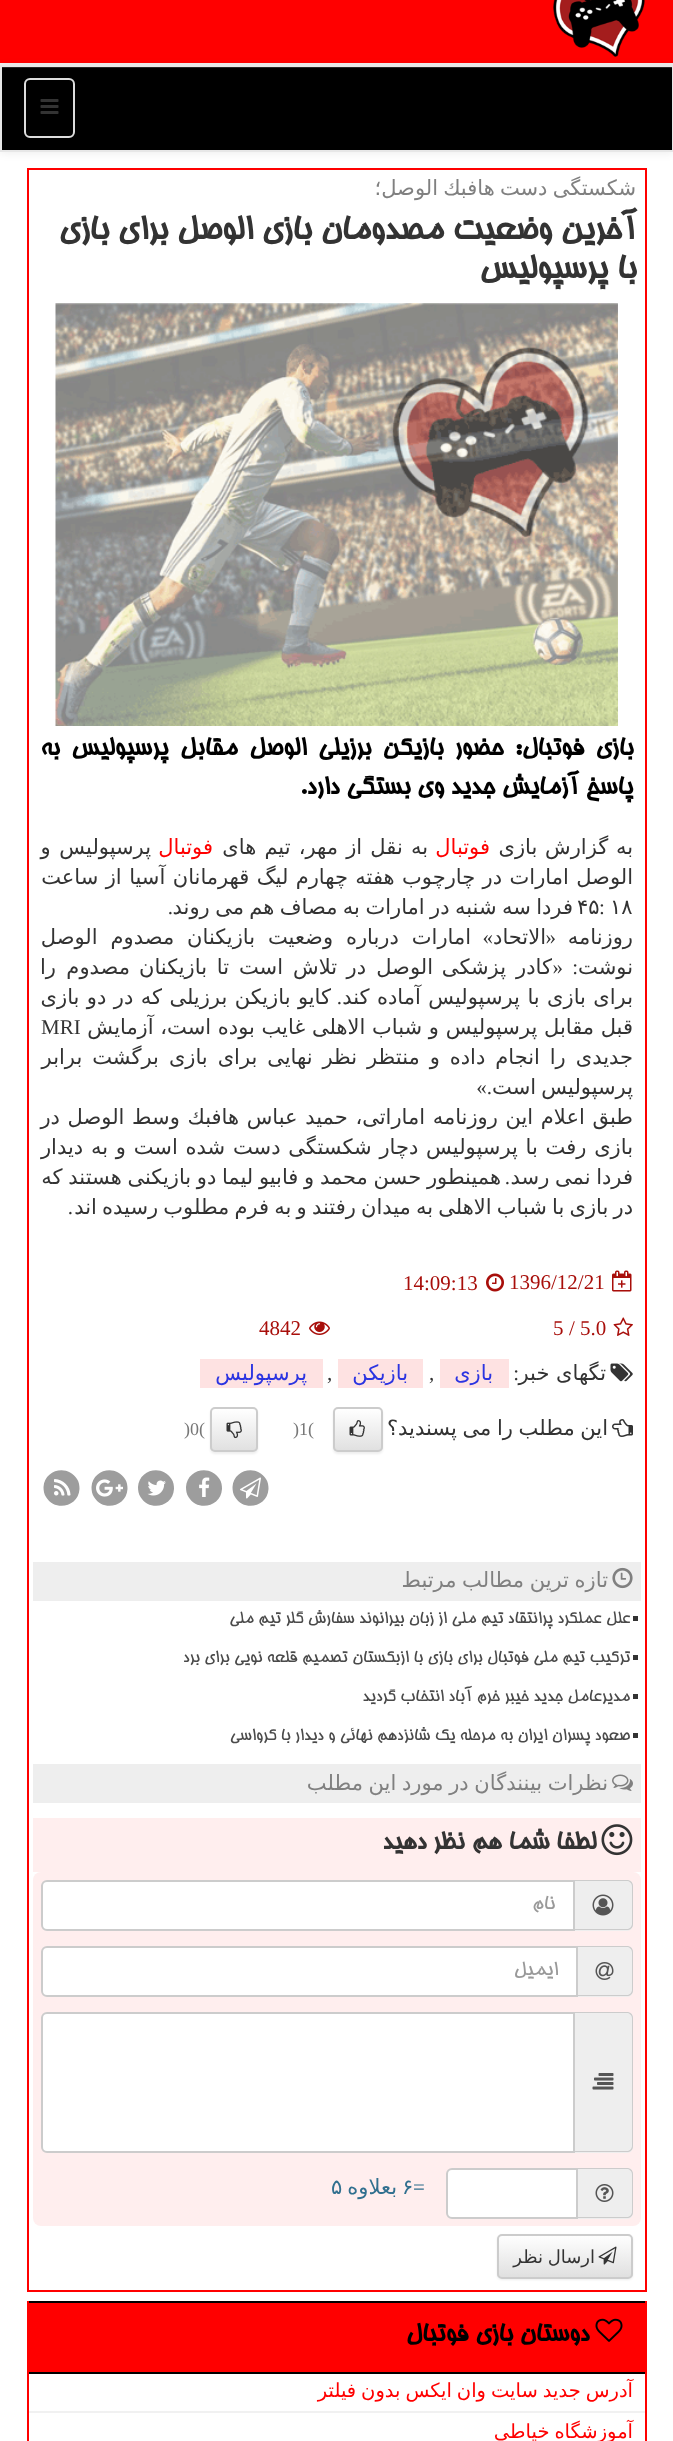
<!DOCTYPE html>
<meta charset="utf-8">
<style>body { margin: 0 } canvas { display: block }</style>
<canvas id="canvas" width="673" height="2441"></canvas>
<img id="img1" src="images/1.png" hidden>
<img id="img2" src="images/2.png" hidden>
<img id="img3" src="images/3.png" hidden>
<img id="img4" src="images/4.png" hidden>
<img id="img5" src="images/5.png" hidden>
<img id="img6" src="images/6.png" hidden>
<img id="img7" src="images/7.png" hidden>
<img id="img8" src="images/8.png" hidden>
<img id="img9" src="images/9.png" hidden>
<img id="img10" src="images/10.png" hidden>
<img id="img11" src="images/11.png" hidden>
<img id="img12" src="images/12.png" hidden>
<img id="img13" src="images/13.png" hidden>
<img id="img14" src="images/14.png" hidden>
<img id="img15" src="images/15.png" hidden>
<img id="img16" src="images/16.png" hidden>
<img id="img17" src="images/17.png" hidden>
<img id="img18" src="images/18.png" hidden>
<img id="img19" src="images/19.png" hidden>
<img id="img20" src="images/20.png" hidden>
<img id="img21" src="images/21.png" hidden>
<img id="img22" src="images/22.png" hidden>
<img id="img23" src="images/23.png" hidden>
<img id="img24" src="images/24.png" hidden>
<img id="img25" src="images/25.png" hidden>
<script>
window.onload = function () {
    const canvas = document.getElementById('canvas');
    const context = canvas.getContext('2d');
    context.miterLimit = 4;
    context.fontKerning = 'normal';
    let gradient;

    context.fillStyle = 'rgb(255, 255, 255)';
    context.fillRect(0, 0, 673, 2441);
    context.fillStyle = 'rgb(255, 0, 0)';
    context.fillRect(0, 0, 673, 63);
    context.fillStyle = 'rgb(238, 238, 238)';
    context.fillRect(0, 63, 673, 2);
    context.drawImage(document.getElementById('img1'), 553, 0, 92, 57);
    context.fillStyle = 'rgba(0, 0, 0, 0.07)';
    context.filter = 'blur(4px)';
    context.beginPath();
    context.rect(0, 66, 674, 87);
    context.fill();
    context.filter = 'none';
    context.fillStyle = 'rgb(0, 0, 0)';
    context.fillRect(2, 68, 670, 82);
    context.fillStyle = 'rgb(38, 38, 38)';
    context.fillRect(2, 67, 670, 1);
    context.strokeStyle = 'rgb(231, 231, 231)';
    context.lineWidth = 2;
    context.strokeRect(1, 66, 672, 85);
    context.beginPath();
    context.roundRect(25, 79, 49, 58, 5);
    context.strokeStyle = 'rgb(221, 221, 221)';
    context.stroke();
    context.drawImage(document.getElementById('img2'), 40, 99, 19, 15);
    context.strokeStyle = 'rgb(255, 0, 0)';
    context.strokeRect(28, 169, 618, 2122);
    context.drawImage(document.getElementById('img3'), 55, 303, 563, 423);
    context.drawImage(document.getElementById('img4'), 612, 1270, 20, 22);
    context.drawImage(document.getElementById('img5'), 486, 1273, 18, 19);
    context.drawImage(document.getElementById('img6'), 613, 1317, 20, 19);
    context.drawImage(document.getElementById('img7'), 309, 1321, 21, 14);
    context.drawImage(document.getElementById('img8'), 610, 1363, 23, 19);
    context.fillStyle = 'rgb(254, 226, 226)';
    context.fillRect(440, 1359, 69, 29);
    context.fillRect(338, 1359, 85, 29);
    context.fillRect(200, 1359, 123, 29);
    context.drawImage(document.getElementById('img9'), 612, 1419, 21, 18);
    context.fillStyle = 'rgba(0, 0, 0, 0.07)';
    context.filter = 'blur(1px)';
    context.beginPath();
    context.roundRect(333, 1409, 50, 45, 5);
    context.fill();
    context.filter = 'none';
    context.save();
    context.beginPath();
    context.roundRect(333, 1407, 50, 45, 5);
    context.clip();
    gradient = context.createLinearGradient(358, 1409, 358, 1451);
    gradient.addColorStop(0, 'rgb(255, 255, 255)');
    gradient.addColorStop(1, 'rgb(224, 224, 224)');
    context.fillStyle = gradient;
    context.fillRect(333, 1409, 50, 42);
    context.restore();
    context.beginPath();
    context.roundRect(334, 1408, 48, 43, 4);
    context.strokeStyle = 'rgb(204, 204, 204)';
    context.stroke();
    context.drawImage(document.getElementById('img10'), 349, 1420, 16, 17);
    context.filter = 'blur(1px)';
    context.beginPath();
    context.roundRect(210, 1409, 48, 45, 5);
    context.fill();
    context.filter = 'none';
    context.save();
    context.beginPath();
    context.roundRect(210, 1407, 48, 45, 5);
    context.clip();
    gradient = context.createLinearGradient(234, 1409, 234, 1451);
    gradient.addColorStop(0, 'rgb(255, 255, 255)');
    gradient.addColorStop(1, 'rgb(224, 224, 224)');
    context.fillStyle = gradient;
    context.fillRect(210, 1409, 48, 42);
    context.restore();
    context.fillStyle = 'rgba(255, 255, 255, 0.15)';
    context.beginPath();
    context.moveTo(214, 1410);
    context.lineTo(247, 1410);
    context.bezierCurveTo(251, 1410, 256, 1408, 256, 1413);
    context.lineTo(256, 1450);
    context.bezierCurveTo(257, 1450, 257, 1449, 257, 1448);
    context.lineTo(257, 1412);
    context.bezierCurveTo(257, 1410, 256, 1409, 254, 1409);
    context.lineTo(215, 1409);
    context.bezierCurveTo(213, 1409, 212, 1410, 212, 1412);
    context.lineTo(212, 1413);
    context.bezierCurveTo(212, 1411, 213, 1410, 214, 1410);
    context.closePath();
    context.fill();
    context.beginPath();
    context.roundRect(211, 1408, 46, 43, 4);
    context.stroke();
    context.drawImage(document.getElementById('img11'), 226, 1421, 16, 18);
    context.fillStyle = 'rgb(157, 157, 157)';
    context.beginPath();
    context.moveTo(266, 1479);
    context.bezierCurveTo(268, 1482, 268.5, 1485.5, 268.5, 1489);
    context.bezierCurveTo(267.5, 1507, 244, 1512, 235, 1497);
    context.bezierCurveTo(233, 1494, 232.5, 1490.5, 232.5, 1487);
    context.bezierCurveTo(233.5, 1469, 257, 1464, 266, 1479);
    context.closePath();
    context.fill();
    context.drawImage(document.getElementById('img12'), 240, 1477, 21, 22);
    context.beginPath();
    context.moveTo(219.5, 1479);
    context.bezierCurveTo(221.5, 1482, 222, 1485.5, 222, 1489);
    context.bezierCurveTo(221, 1507, 197.5, 1512, 188.5, 1497);
    context.bezierCurveTo(186.5, 1494, 186, 1490.5, 186, 1487);
    context.bezierCurveTo(187, 1469, 210.5, 1464, 219.5, 1479);
    context.closePath();
    context.fill();
    context.drawImage(document.getElementById('img13'), 199, 1477, 11, 20);
    context.beginPath();
    context.moveTo(171.5, 1479);
    context.bezierCurveTo(173.5, 1482, 174, 1485.5, 174, 1489);
    context.bezierCurveTo(173, 1507, 149.5, 1512, 140.5, 1497);
    context.bezierCurveTo(138.5, 1494, 138, 1490.5, 138, 1487);
    context.bezierCurveTo(139, 1469, 162.5, 1464, 171.5, 1479);
    context.closePath();
    context.fill();
    context.drawImage(document.getElementById('img14'), 147, 1480, 19, 16);
    context.beginPath();
    context.moveTo(125, 1479);
    context.bezierCurveTo(127, 1482, 127.5, 1485.5, 127.5, 1489);
    context.bezierCurveTo(126.5, 1507, 103, 1512, 94, 1497);
    context.bezierCurveTo(92, 1494, 91.5, 1490.5, 91.5, 1487);
    context.bezierCurveTo(92.5, 1469, 116, 1464, 125, 1479);
    context.closePath();
    context.fill();
    context.drawImage(document.getElementById('img15'), 96, 1479, 27, 18);
    context.beginPath();
    context.moveTo(77, 1479);
    context.bezierCurveTo(79, 1482, 79.5, 1485.5, 79.5, 1489);
    context.bezierCurveTo(78.5, 1507, 55, 1512, 46, 1497);
    context.bezierCurveTo(44, 1494, 43.5, 1490.5, 43.5, 1487);
    context.bezierCurveTo(44.5, 1469, 68, 1464, 77, 1479);
    context.closePath();
    context.fill();
    context.drawImage(document.getElementById('img16'), 54, 1479, 17, 17);
    context.fillStyle = 'rgb(238, 238, 238)';
    context.fillRect(33, 1562, 608, 39);
    context.drawImage(document.getElementById('img17'), 612, 1567, 21, 22);
    context.fillStyle = 'rgb(51, 51, 51)';
    context.fillRect(633, 1616, 5, 5);
    context.fillRect(633, 1655, 5, 5);
    context.fillRect(633, 1694, 5, 5);
    context.fillRect(633, 1733, 5, 5);
    context.fillStyle = 'rgb(238, 238, 238)';
    context.fillRect(33, 1764, 608, 39);
    context.drawImage(document.getElementById('img18'), 612, 1774, 21, 17);
    context.fillStyle = 'rgb(255, 238, 238)';
    context.fillRect(33, 1818, 608, 54);
    context.drawImage(document.getElementById('img19'), 601, 1824, 32, 32);
    context.beginPath();
    context.roundRect(33, 1872, 608, 354, 8);
    context.fill();
    context.fillStyle = 'rgb(238, 238, 238)';
    context.beginPath();
    context.roundRect(575, 1880, 58, 51, [0, 6, 6, 0]);
    context.fill();
    context.fillStyle = 'rgb(204, 204, 204)';
    context.beginPath();
    context.moveTo(574, 1880);
    context.lineTo(627, 1880);
    context.bezierCurveTo(630, 1880, 633, 1882, 633, 1886);
    context.lineTo(633, 1924);
    context.bezierCurveTo(633, 1928, 630, 1930, 627, 1930);
    context.lineTo(574, 1930);
    context.closePath();
    context.moveTo(574, 1881);
    context.lineTo(627, 1881);
    context.bezierCurveTo(629, 1881, 632, 1883, 632, 1886);
    context.lineTo(632, 1924);
    context.bezierCurveTo(632, 1927, 629, 1929, 627, 1929);
    context.lineTo(574, 1929);
    context.closePath();
    context.fill('evenodd');
    context.drawImage(document.getElementById('img20'), 592, 1894, 22, 22);
    context.fillStyle = 'rgb(255, 255, 255)';
    context.beginPath();
    context.roundRect(42, 1881, 532, 49, [5, 0, 0, 5]);
    context.fill();
    context.stroke();
    context.fillStyle = 'rgb(238, 238, 238)';
    context.beginPath();
    context.roundRect(578, 1946, 55, 51, [0, 6, 6, 0]);
    context.fill();
    context.fillStyle = 'rgb(204, 204, 204)';
    context.beginPath();
    context.moveTo(578, 1946);
    context.lineTo(627, 1946);
    context.bezierCurveTo(630, 1946, 633, 1948, 633, 1952);
    context.lineTo(633, 1990);
    context.bezierCurveTo(633, 1994, 630, 1996, 627, 1996);
    context.lineTo(578, 1996);
    context.closePath();
    context.moveTo(578, 1947);
    context.lineTo(627, 1947);
    context.bezierCurveTo(629, 1947, 632, 1949, 632, 1952);
    context.lineTo(632, 1990);
    context.bezierCurveTo(632, 1993, 629, 1995, 627, 1995);
    context.lineTo(578, 1995);
    context.closePath();
    context.fill('evenodd');
    context.drawImage(document.getElementById('img21'), 595, 1962, 19, 18);
    context.fillStyle = 'rgb(255, 255, 255)';
    context.beginPath();
    context.roundRect(42, 1947, 535, 49, [5, 0, 0, 5]);
    context.fill();
    context.stroke();
    context.fillStyle = 'rgb(238, 238, 238)';
    context.beginPath();
    context.roundRect(575, 2012, 58, 141, [0, 6, 6, 0]);
    context.fill();
    context.fillStyle = 'rgb(204, 204, 204)';
    context.beginPath();
    context.moveTo(574, 2012);
    context.lineTo(627, 2012);
    context.bezierCurveTo(630, 2012, 633, 2014, 633, 2018);
    context.lineTo(633, 2146);
    context.bezierCurveTo(633, 2150, 630, 2152, 627, 2152);
    context.lineTo(574, 2152);
    context.closePath();
    context.moveTo(574, 2013);
    context.lineTo(627, 2013);
    context.bezierCurveTo(629, 2013, 632, 2015, 632, 2018);
    context.lineTo(632, 2146);
    context.bezierCurveTo(632, 2149, 629, 2151, 627, 2151);
    context.lineTo(574, 2151);
    context.closePath();
    context.fill('evenodd');
    context.drawImage(document.getElementById('img22'), 592, 2073, 22, 17);
    context.fillStyle = 'rgb(255, 255, 255)';
    context.beginPath();
    context.roundRect(42, 2013, 532, 139, [5, 0, 0, 5]);
    context.fill();
    context.stroke();
    context.fillStyle = 'rgb(238, 238, 238)';
    context.beginPath();
    context.roundRect(578, 2168, 55, 51, [0, 6, 6, 0]);
    context.fill();
    context.fillStyle = 'rgb(204, 204, 204)';
    context.beginPath();
    context.moveTo(578, 2168);
    context.lineTo(627, 2168);
    context.bezierCurveTo(630, 2168, 633, 2170, 633, 2174);
    context.lineTo(633, 2212);
    context.bezierCurveTo(633, 2216, 630, 2218, 627, 2218);
    context.lineTo(578, 2218);
    context.closePath();
    context.moveTo(578, 2169);
    context.lineTo(627, 2169);
    context.bezierCurveTo(629, 2169, 632, 2171, 632, 2174);
    context.lineTo(632, 2212);
    context.bezierCurveTo(632, 2215, 629, 2217, 627, 2217);
    context.lineTo(578, 2217);
    context.closePath();
    context.fill('evenodd');
    context.drawImage(document.getElementById('img23'), 595, 2184, 19, 18);
    context.fillStyle = 'rgb(255, 255, 255)';
    context.beginPath();
    context.roundRect(447, 2169, 130, 49, [5, 0, 0, 5]);
    context.fill();
    context.stroke();
    context.fillStyle = 'rgba(0, 0, 0, 0.07)';
    context.filter = 'blur(1px)';
    context.beginPath();
    context.roundRect(497, 2235, 136, 45, 5);
    context.fill();
    context.filter = 'none';
    context.save();
    context.beginPath();
    context.roundRect(497, 2234, 136, 45, 5);
    context.clip();
    gradient = context.createLinearGradient(565, 2235, 565, 2277);
    gradient.addColorStop(0, 'rgb(255, 255, 255)');
    gradient.addColorStop(1, 'rgb(224, 224, 224)');
    context.fillStyle = gradient;
    context.fillRect(497, 2235, 136, 42);
    context.restore();
    context.beginPath();
    context.roundRect(498, 2235, 134, 43, 4);
    context.stroke();
    context.drawImage(document.getElementById('img24'), 598, 2246, 19, 19);
    context.fillStyle = 'rgb(0, 0, 0)';
    context.fillRect(27, 2301, 620, 2);
    context.fillStyle = 'rgb(255, 0, 0)';
    context.fillRect(645, 2301, 2, 140);
    context.fillRect(27, 2301, 2, 140);
    context.fillRect(29, 2303, 616, 69);
    context.drawImage(document.getElementById('img25'), 595, 2318, 28, 24);
    context.fillStyle = 'rgb(0, 0, 0)';
    context.fillRect(29, 2372, 616, 2);
    context.fillStyle = 'rgb(241, 241, 241)';
    context.fillRect(29, 2411, 616, 2);
    context.wordSpacing = '-1.5px';
    context.direction = 'rtl';
    context.font = '21px DejaVu Sans';
    context.fillStyle = 'rgb(128, 128, 128)';
    context.fillText('شكستگی دست هافبك الوصل؛', 636, 195);
    context.wordSpacing = '0px';
    context.font = 'bold 35.75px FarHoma';
    context.fillStyle = 'rgb(51, 51, 51)';
    context.fillText('آخرین وضعیت مصدومان بازی الوصل برای بازی', 636, 239);
    context.fillText('با پرسپولیس', 636, 278);
    context.wordSpacing = '4.75px';
    context.font = 'bold 27px FarHoma';
    context.fillStyle = 'rgb(0, 0, 0)';
    context.fillText('بازی فوتبال: حضور بازیكن برزیلی الوصل مقابل پرسپولیس به', 633, 755);
    context.wordSpacing = '0px';
    context.fillText('پاسخ آزمایش جدید وی بستگی دارد.', 633, 794);
    context.wordSpacing = '1px';
    context.font = '21px DejaVu Sans';
    context.fillStyle = 'rgb(51, 51, 51)';
    context.fillText('به گزارش بازی', 633, 854);
    context.wordSpacing = '0px';
    context.fillStyle = 'rgb(255, 0, 0)';
    context.fillText('فوتبال', 490, 854);
    context.wordSpacing = '1.5px';
    context.fillStyle = 'rgb(51, 51, 51)';
    context.fillText('به نقل از مهر، تیم های', 428, 854);
    context.wordSpacing = '0px';
    context.fillStyle = 'rgb(255, 0, 0)';
    context.fillText('فوتبال', 213, 854);
    context.wordSpacing = '2px';
    context.fillStyle = 'rgb(51, 51, 51)';
    context.fillText('پرسپولیس و', 151, 854);
    context.wordSpacing = '0.75px';
    context.fillText('الوصل امارات در چارچوب هفته چهارم لیگ قهرمانان آسیا از ساعت', 633, 884);
    context.wordSpacing = '0px';
    context.direction = 'ltr';
    context.fillText('۱۸', 610, 914);
    context.font = '21px Liberation Serif';
    context.fillText(':', 599, 914);
    context.wordSpacing = '-1.25px';
    context.direction = 'rtl';
    context.font = '21px DejaVu Sans';
    context.fillText('فردا سه شنبه در امارات به مصاف هم می روند', 573, 914);
    context.wordSpacing = '0px';
    context.direction = 'ltr';
    context.fillText('۴۵', 577, 914);
    context.direction = 'rtl';
    context.font = '21px Liberation Serif';
    context.fillText('.', 173, 914);
    context.font = '21px DejaVu Sans';
    context.fillText('روزنامه', 633, 944);
    context.font = '21px Liberation Serif';
    context.fillText('«', 556, 944);
    context.font = '21px DejaVu Sans';
    context.fillText('الاتحاد', 546, 944);
    context.font = '21px Liberation Serif';
    context.fillText('»', 493, 944);
    context.wordSpacing = '6.25px';
    context.font = '21px DejaVu Sans';
    context.fillText('امارات درباره وضعیت بازیكنان مصدوم الوصل', 471, 944);
    context.wordSpacing = '0px';
    context.fillText('نوشت', 633, 974);
    context.wordSpacing = '4px';
    context.font = '21px Liberation Serif';
    context.fillText(': «', 578, 974);
    context.wordSpacing = '0px';
    context.font = '21px DejaVu Sans';
    context.fillText('كادر', 552, 974);
    context.fillText('پزشكی', 506, 974);
    context.fillText('الوصل', 433, 974);
    context.fillText('در', 366, 974);
    context.fillText('تلاش', 337, 974);
    context.fillText('است', 283, 974);
    context.fillText('تا', 229, 974);
    context.fillText('بازیكنان', 207, 974);
    context.fillText('مصدوم', 130, 974);
    context.fillText('را', 56, 974);
    context.wordSpacing = '0.75px';
    context.fillText('برای بازی با پرسپولیس آماده كند', 633, 1004);
    context.wordSpacing = '0px';
    context.font = '21px Liberation Serif';
    context.fillText('.', 342, 1004);
    context.wordSpacing = '0.75px';
    context.font = '21px DejaVu Sans';
    context.fillText('كایو بازیكن برزیلی كه در دو بازی', 331, 1004);
    context.wordSpacing = '0px';
    context.fillText('قبل مقابل پرسپولیس و شباب الاهلی غایب بوده است، آزمایش', 633, 1034);
    context.direction = 'ltr';
    context.font = '21px Liberation Serif';
    context.fillText('MRI', 41, 1034);
    context.wordSpacing = '3.25px';
    context.direction = 'rtl';
    context.font = '21px DejaVu Sans';
    context.fillText('جدیدی را انجام داده و منتظر نظر نهایی برای بازی برگشت برابر', 633, 1064);
    context.wordSpacing = '-1.5px';
    context.fillText('پرسپولیس است', 633, 1094);
    context.wordSpacing = '0px';
    context.font = '21px Liberation Serif';
    context.fillText('.»', 492, 1094);
    context.wordSpacing = '1px';
    context.font = '21px DejaVu Sans';
    context.fillText('طبق اعلام این روزنامه اماراتی، حمید عباس هافبك وسط الوصل در', 633, 1124);
    context.wordSpacing = '1.1px';
    context.fillText('بازی رفت با پرسپولیس دچار شكستگی دست شده است و به دیدار', 633, 1154);
    context.wordSpacing = '-1px';
    context.fillText('فردا نمی رسد', 633, 1184);
    context.fillText('همینطور حسن محمد و فابیو لیما دو بازیكنی هستند كه', 501, 1184);
    context.wordSpacing = '0px';
    context.font = '21px Liberation Serif';
    context.fillText('.', 510, 1184);
    context.wordSpacing = '-1.5px';
    context.font = '21px DejaVu Sans';
    context.fillText('در بازی با شباب الاهلی به میدان رفتند و به فرم مطلوب رسیده اند', 633, 1214);
    context.wordSpacing = '0px';
    context.font = '21px Liberation Serif';
    context.fillText('.', 73, 1214);
    context.direction = 'ltr';
    context.fillStyle = 'rgb(168, 14, 10)';
    context.fillText('1396/12/21', 509, 1289);
    context.fillText('14:09:13', 403, 1290);
    context.fillText('5.0', 580, 1335);
    context.fillText('/', 569, 1335);
    context.fillText('5', 553, 1335);
    context.fillText('4842', 259, 1335);
    context.direction = 'rtl';
    context.font = '21px DejaVu Sans';
    context.fillStyle = 'rgb(51, 51, 51)';
    context.fillText('تگهای خبر', 606, 1380);
    context.font = '21px Liberation Serif';
    context.fillText(':', 519, 1380);
    context.font = '21px DejaVu Sans';
    context.fillStyle = 'rgb(43, 52, 225)';
    context.fillText('بازی', 493, 1380);
    context.direction = 'ltr';
    context.font = '21px Liberation Serif';
    context.fillStyle = 'rgb(51, 51, 51)';
    context.fillText(',', 429, 1380);
    context.direction = 'rtl';
    context.font = '21px DejaVu Sans';
    context.fillStyle = 'rgb(43, 52, 225)';
    context.fillText('بازیكن', 408, 1380);
    context.direction = 'ltr';
    context.font = '21px Liberation Serif';
    context.fillStyle = 'rgb(51, 51, 51)';
    context.fillText(',', 327, 1380);
    context.direction = 'rtl';
    context.font = '21px DejaVu Sans';
    context.fillStyle = 'rgb(43, 52, 225)';
    context.fillText('پرسپولیس', 307, 1380);
    context.wordSpacing = '-1px';
    context.fillStyle = 'rgb(51, 51, 51)';
    context.fillText('این مطلب را می پسندید؟', 608, 1435);
    context.wordSpacing = '0px';
    context.direction = 'ltr';
    context.font = '18px Liberation Serif';
    context.fillStyle = 'rgb(119, 119, 119)';
    context.fillText(')1(', 293, 1435);
    context.fillText(')0(', 184, 1435);
    context.wordSpacing = '-1px';
    context.direction = 'rtl';
    context.font = '21px DejaVu Sans';
    context.fillStyle = 'rgb(128, 128, 128)';
    context.fillText('تازه ترین مطالب مرتبط', 608, 1587);
    context.wordSpacing = '0px';
    context.font = '18px FarHoma';
    context.fillStyle = 'rgb(74, 74, 74)';
    context.fillText('علل عملکرد پرانتقاد تیم ملی از زبان بیرانوند سفارش گلر تیم ملی', 630, 1623);
    context.fillText('ترکیب تیم ملی فوتبال برای بازی با ازبکستان تصمیم قلعه نویی برای برد', 630, 1662);
    context.fillText('مدیرعامل جدید خیبر خرم آباد انتخاب گردید', 630, 1701);
    context.fillText('صعود پسران ایران به مرحله یک شانزدهم نهائی و دیدار با کرواسی', 630, 1740);
    context.wordSpacing = '-1px';
    context.font = '21px DejaVu Sans';
    context.fillStyle = 'rgb(128, 128, 128)';
    context.fillText('نظرات بینندگان در مورد این مطلب', 608, 1790);
    context.wordSpacing = '0px';
    context.font = 'bold 27px FarHoma';
    context.fillStyle = 'rgb(51, 51, 51)';
    context.fillText('لطفا شما هم', 596, 1849);
    context.fillText('نظر دهید', 464, 1849);
    context.font = '21px FarHoma';
    context.fillStyle = 'rgb(153, 153, 153)';
    context.fillText('نام', 555, 1909);
    context.fillText('ایمیل', 558, 1975);
    context.direction = 'ltr';
    context.font = '21px Liberation Serif';
    context.fillStyle = 'rgb(49, 112, 143)';
    context.fillText('=', 413, 2194);
    context.font = '21px DejaVu Sans';
    context.fillText('۶', 402, 2194);
    context.direction = 'rtl';
    context.fillText('بعلاوه', 397, 2194);
    context.direction = 'ltr';
    context.fillText('۵', 331, 2194);
    context.wordSpacing = '-1px';
    context.direction = 'rtl';
    context.font = '18px DejaVu Sans';
    context.fillStyle = 'rgb(51, 51, 51)';
    context.fillText('ارسال نظر', 595, 2263);
    context.wordSpacing = '0px';
    context.font = 'bold 27px FarHoma';
    context.fillStyle = 'rgb(0, 0, 0)';
    context.fillText('دوستان بازی فوتبال', 589, 2341);
    context.wordSpacing = '-1.25px';
    context.font = '19.5px DejaVu Sans';
    context.fillStyle = 'rgb(255, 0, 0)';
    context.fillText('آدرس جدید سایت وان ایکس بدون فیلتر', 633, 2397);
    context.fillText('آموزشگاه خیاطی', 633, 2438);
};
</script>
